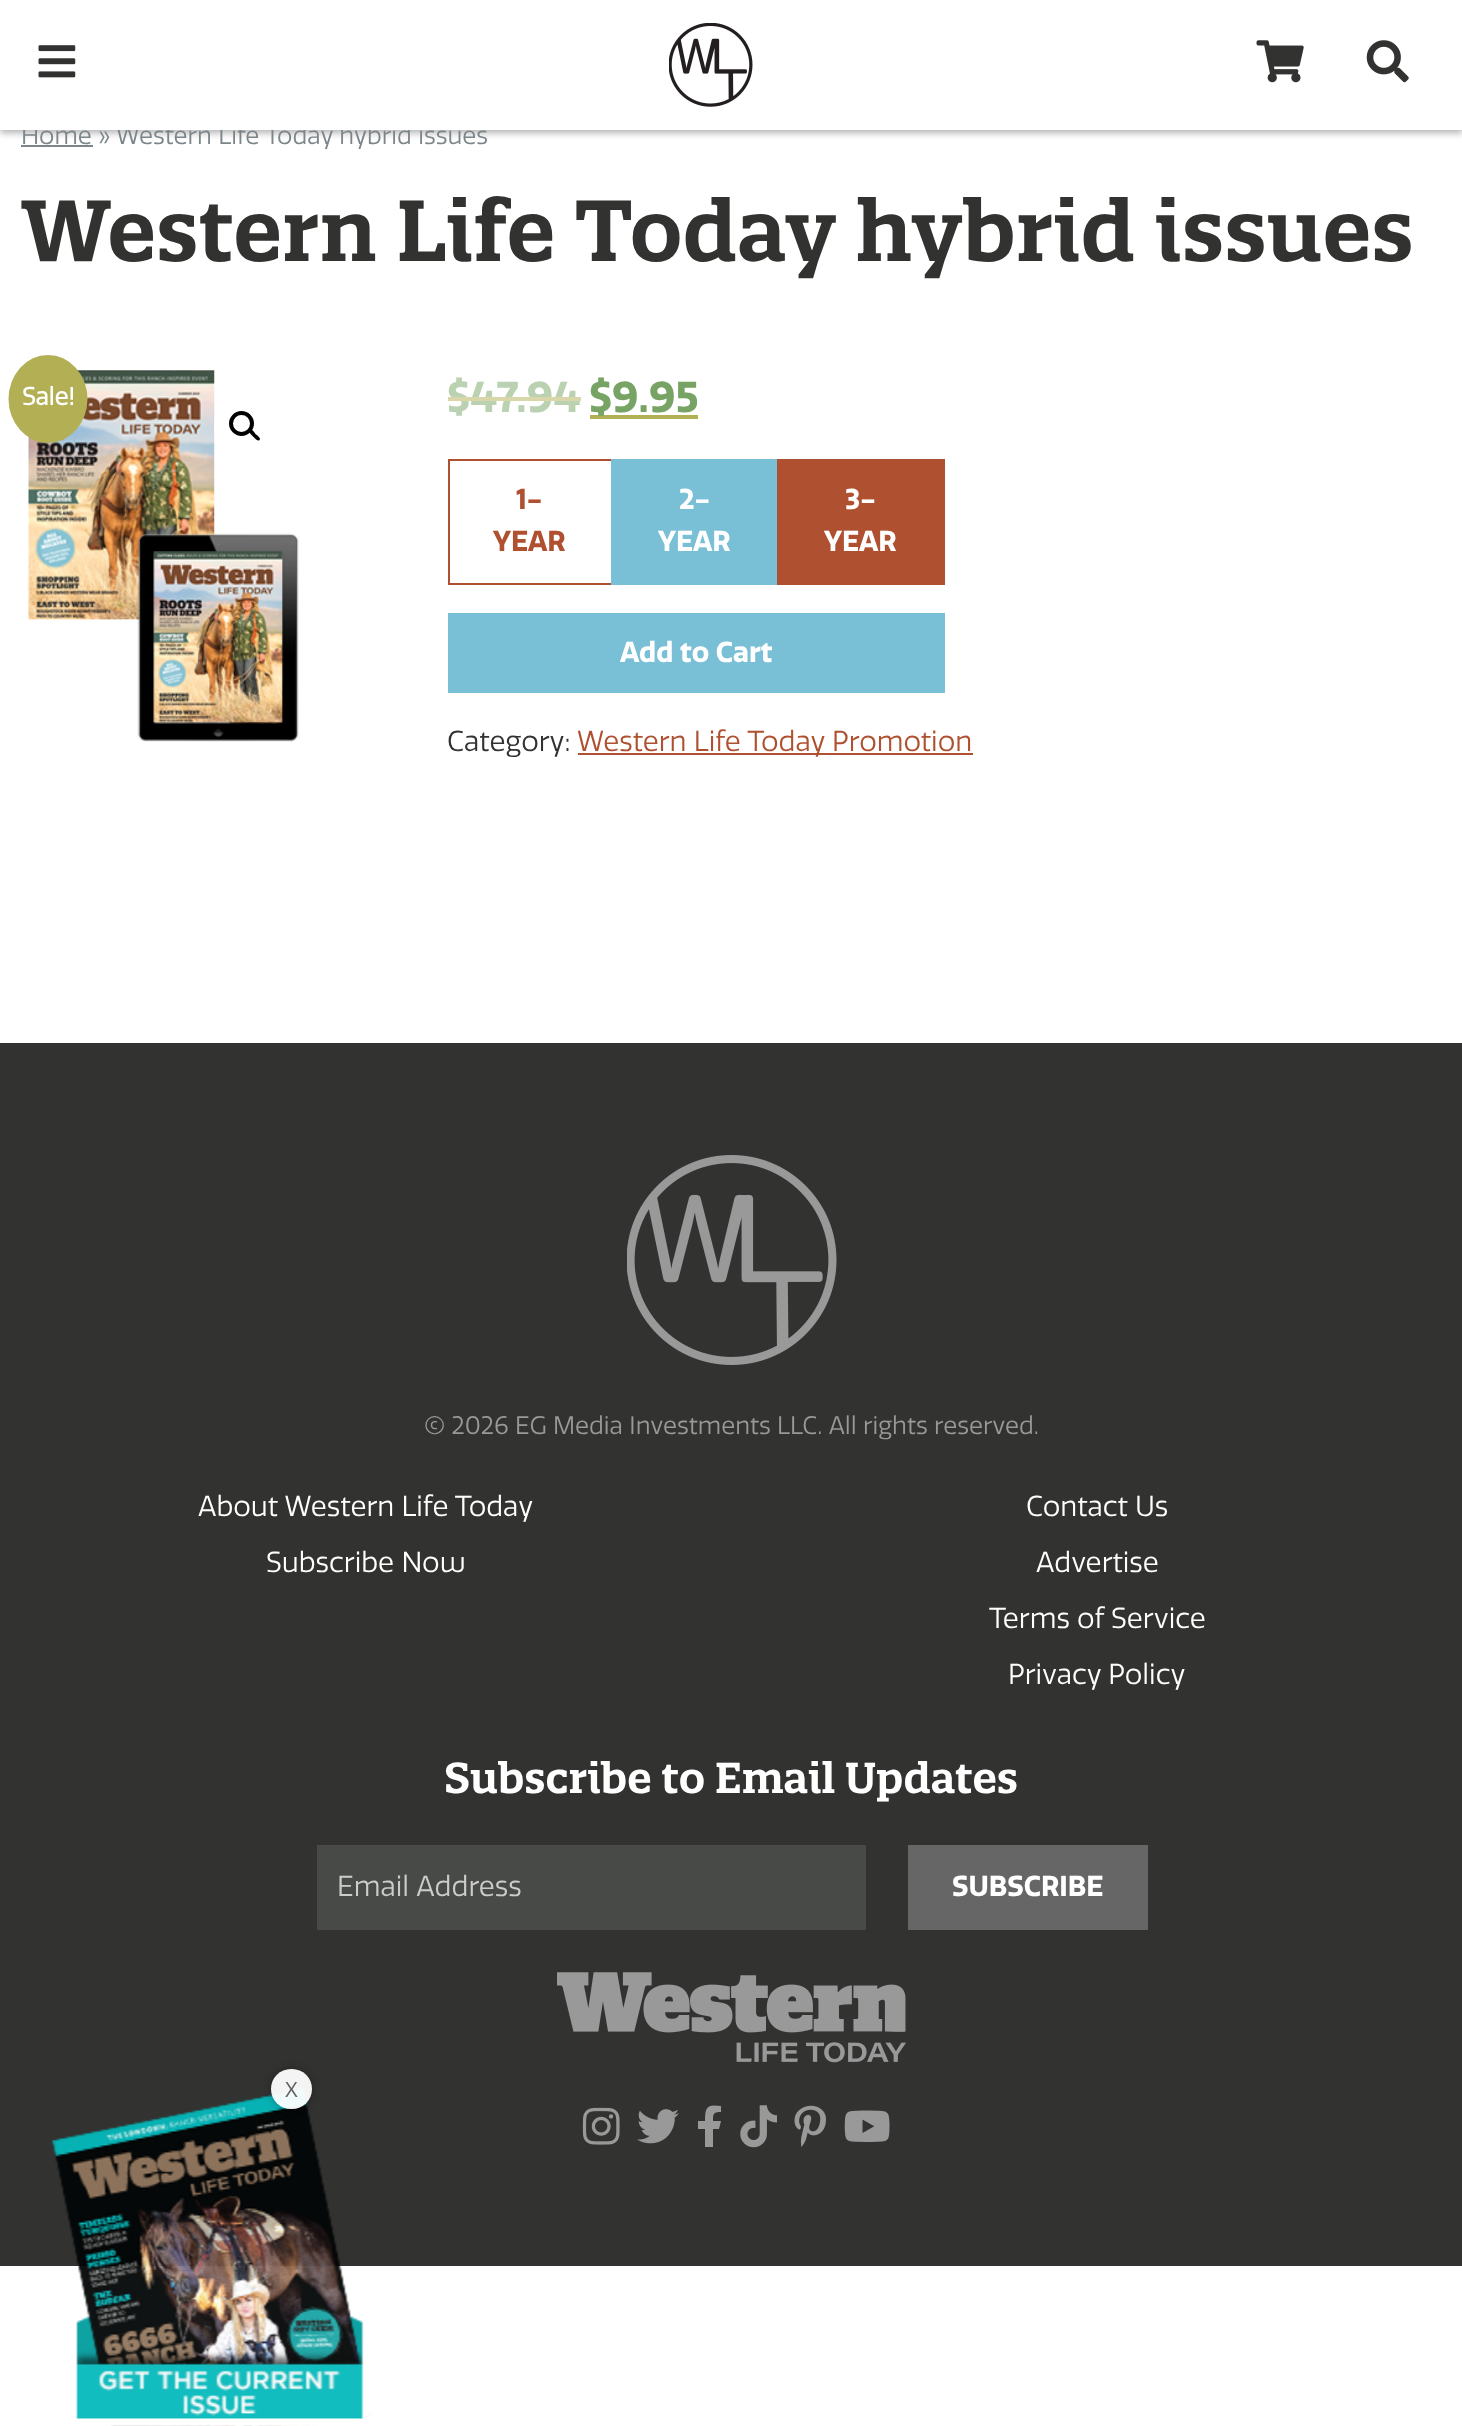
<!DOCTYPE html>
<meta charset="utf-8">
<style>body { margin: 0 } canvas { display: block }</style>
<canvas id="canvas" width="1462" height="2426"></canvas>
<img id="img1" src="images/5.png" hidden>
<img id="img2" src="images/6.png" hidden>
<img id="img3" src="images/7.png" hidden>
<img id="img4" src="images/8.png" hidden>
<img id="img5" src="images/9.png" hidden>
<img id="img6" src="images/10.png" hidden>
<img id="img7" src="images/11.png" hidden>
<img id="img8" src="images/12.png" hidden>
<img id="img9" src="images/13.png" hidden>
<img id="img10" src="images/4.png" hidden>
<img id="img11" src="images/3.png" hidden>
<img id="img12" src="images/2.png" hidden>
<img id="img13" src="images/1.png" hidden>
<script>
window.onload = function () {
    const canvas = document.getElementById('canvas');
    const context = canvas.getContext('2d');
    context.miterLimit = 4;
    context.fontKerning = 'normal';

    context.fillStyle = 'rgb(255, 255, 255)';
    context.fillRect(0, 0, 1462, 2426);
    context.fillStyle = 'rgba(0, 0, 0, 0.3)';
    context.filter = 'blur(3.5px)';
    context.beginPath();
    context.rect(0, 4, 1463, 129);
    context.fill();
    context.filter = 'none';
    context.fillStyle = 'rgb(123, 133, 138)';
    context.fillRect(21, 145, 72, 2);
    context.drawImage(document.getElementById('img1'), 28, 370, 271, 372);
    context.fillStyle = 'rgb(255, 255, 255)';
    context.beginPath();
    context.arc(245.5, 427.5, 31.5, 0, 2 * Math.PI);
    context.fill();
    context.beginPath();
    context.arc(241.5, 423.5, 10.5, 0, 2 * Math.PI);
    context.strokeStyle = 'rgb(0, 0, 0)';
    context.lineWidth = 4;
    context.stroke();
    context.fillStyle = 'rgb(0, 0, 0)';
    context.beginPath();
    context.moveTo(249.5, 430);
    context.bezierCurveTo(251.5, 428, 254.5, 432.5, 255.5, 434);
    context.bezierCurveTo(256.5, 435, 261.5, 438, 259.5, 440);
    context.bezierCurveTo(257.5, 442, 254.5, 437.5, 253, 436.5);
    context.bezierCurveTo(252, 435, 247.5, 432, 249.5, 430);
    context.closePath();
    context.fill();
    context.fillStyle = 'rgb(179, 175, 84)';
    context.fillRect(590, 415, 108, 4);
    context.strokeStyle = 'rgb(175, 81, 48)';
    context.lineWidth = 2;
    context.strokeRect(449, 460, 163, 124);
    context.fillStyle = 'rgb(121, 191, 214)';
    context.fillRect(611, 459, 166, 126);
    context.fillStyle = 'rgb(175, 81, 48)';
    context.fillRect(777, 459, 168, 126);
    context.fillStyle = 'rgb(121, 191, 214)';
    context.fillRect(448, 613, 497, 80);
    context.fillStyle = 'rgb(175, 81, 48)';
    context.fillRect(578, 753, 395, 2);
    context.fillStyle = 'rgb(179, 175, 84)';
    context.beginPath();
    context.ellipse(48, 399, 39.5, 44, 0, 0, 2 * Math.PI);
    context.fill();
    context.fillStyle = 'rgb(50, 51, 49)';
    context.fillRect(0, 1043, 1462, 1223);
    context.drawImage(document.getElementById('img2'), 627, 1155, 210, 210);
    context.fillStyle = 'rgb(72, 74, 71)';
    context.fillRect(317, 1845, 549, 85);
    context.fillStyle = 'rgb(102, 102, 102)';
    context.fillRect(908, 1845, 240, 85);
    context.drawImage(document.getElementById('img3'), 557, 1972, 349, 91);
    context.drawImage(document.getElementById('img4'), 582, 2107, 38, 38);
    context.drawImage(document.getElementById('img5'), 637, 2109, 42, 35);
    context.fillStyle = 'rgb(153, 153, 153)';
    context.beginPath();
    context.moveTo(719, 2129);
    context.lineTo(713, 2129);
    context.lineTo(713, 2147);
    context.lineTo(705, 2147);
    context.lineTo(705, 2129);
    context.lineTo(698, 2129);
    context.lineTo(698, 2121);
    context.lineTo(705, 2121);
    context.bezierCurveTo(705, 2107, 707, 2104, 721, 2106);
    context.lineTo(721, 2112);
    context.bezierCurveTo(713, 2112, 713, 2114, 713, 2121);
    context.lineTo(721, 2121);
    context.closePath();
    context.fill();
    context.drawImage(document.getElementById('img6'), 740, 2105, 37, 43);
    context.drawImage(document.getElementById('img7'), 794, 2105, 32, 42);
    context.drawImage(document.getElementById('img8'), 844, 2110, 46, 32);
    context.drawImage(document.getElementById('img9'), 52, 2088, 319, 338);
    context.save();
    context.beginPath();
    context.moveTo(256, 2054);
    context.lineTo(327, 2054);
    context.lineTo(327, 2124);
    context.lineTo(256, 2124);
    context.closePath();
    context.moveTo(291, 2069);
    context.lineTo(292, 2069);
    context.bezierCurveTo(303, 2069, 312, 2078, 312, 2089);
    context.bezierCurveTo(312, 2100, 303, 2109, 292, 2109);
    context.lineTo(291, 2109);
    context.bezierCurveTo(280, 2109, 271, 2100, 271, 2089);
    context.bezierCurveTo(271, 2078, 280, 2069, 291, 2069);
    context.closePath();
    context.clip('evenodd');
    context.fillStyle = 'rgba(0, 0, 0, 0.29)';
    context.filter = 'blur(4.5px)';
    context.beginPath();
    context.roundRect(271, 2069, 41, 40, 20);
    context.fill();
    context.filter = 'none';
    context.restore();
    context.fillStyle = 'rgba(255, 255, 255, 0.95)';
    context.beginPath();
    context.roundRect(271, 2069, 41, 40, 20);
    context.fill();
    context.font = '24.5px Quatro';
    context.fillStyle = 'rgb(123, 133, 138)';
    context.fillText('Home »', 21, 144);
    context.fillText('Western Life Today hybrid issues', 116, 144);
    context.fillStyle = 'rgb(255, 255, 255)';
    context.fillRect(0, 0, 1462, 130);
    context.drawImage(document.getElementById('img10'), 1366, 40, 43, 43);
    context.drawImage(document.getElementById('img11'), 1256, 40, 48, 43);
    context.drawImage(document.getElementById('img12'), 669, 23, 84, 84);
    context.drawImage(document.getElementById('img13'), 38, 45, 38, 33);
    context.font = '600 84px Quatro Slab';
    context.fillStyle = 'rgb(50, 51, 49)';
    context.fillText('Western Life Today hybrid issues', 21, 261);
    context.font = 'bold 42px Quatro';
    context.fillStyle = 'rgb(187, 210, 178)';
    context.fillText('$47.94', 447, 412);
    context.fillStyle = 'rgb(217, 215, 170)';
    context.fillRect(448, 397, 133, 4);
    context.fillStyle = 'rgb(119, 164, 100)';
    context.fillText('$9.95', 589, 412);
    context.font = 'bold 28px Quatro';
    context.fillStyle = 'rgb(175, 81, 48)';
    context.fillText('1-', 516, 509);
    context.fillText('YEAR', 493, 551);
    context.fillStyle = 'rgb(255, 255, 255)';
    context.fillText('2-', 679, 509);
    context.fillText('YEAR', 658, 551);
    context.fillText('3-', 845, 509);
    context.fillText('YEAR', 824, 551);
    context.fillText('Add to Cart', 620, 662);
    context.font = '28px Quatro';
    context.fillStyle = 'rgb(50, 51, 49)';
    context.fillText('Category:', 447, 751);
    context.fillStyle = 'rgb(175, 81, 48)';
    context.fillText('Western Life Today Promotion', 577, 751);
    context.font = 'bold 24px "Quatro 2"';
    context.fillStyle = 'rgb(255, 255, 255)';
    context.fillText('Sale!', 22, 405);
    context.font = '24.5px Quatro';
    context.fillStyle = 'rgb(153, 153, 153)';
    context.fillText('© 2026 EG Media Investments LLC. All rights reserved.', 424, 1434);
    context.font = '28px Quatro';
    context.fillStyle = 'rgb(255, 255, 255)';
    context.fillText('About Western Life Today', 198, 1516);
    context.fillText('Subscribe Now', 266, 1572);
    context.fillText('Contact Us', 1026, 1516);
    context.fillText('Advertise', 1036, 1572);
    context.fillText('Terms of Service', 989, 1628);
    context.fillText('Privacy Policy', 1008, 1684);
    context.font = '600 42px Quatro Slab';
    context.fillText('Subscribe to Email Updates', 444, 1793);
    context.font = '28px Quatro';
    context.fillStyle = 'rgb(204, 204, 204)';
    context.fillText('Email Address', 337, 1896);
    context.font = 'bold 28px Quatro';
    context.fillStyle = 'rgb(255, 255, 255)';
    context.fillText('SUBSCRIBE', 952, 1896);
    context.font = '21px Quatro';
    context.fillStyle = 'rgb(98, 98, 98)';
    context.fillText('X', 285, 2097);
};
</script>
